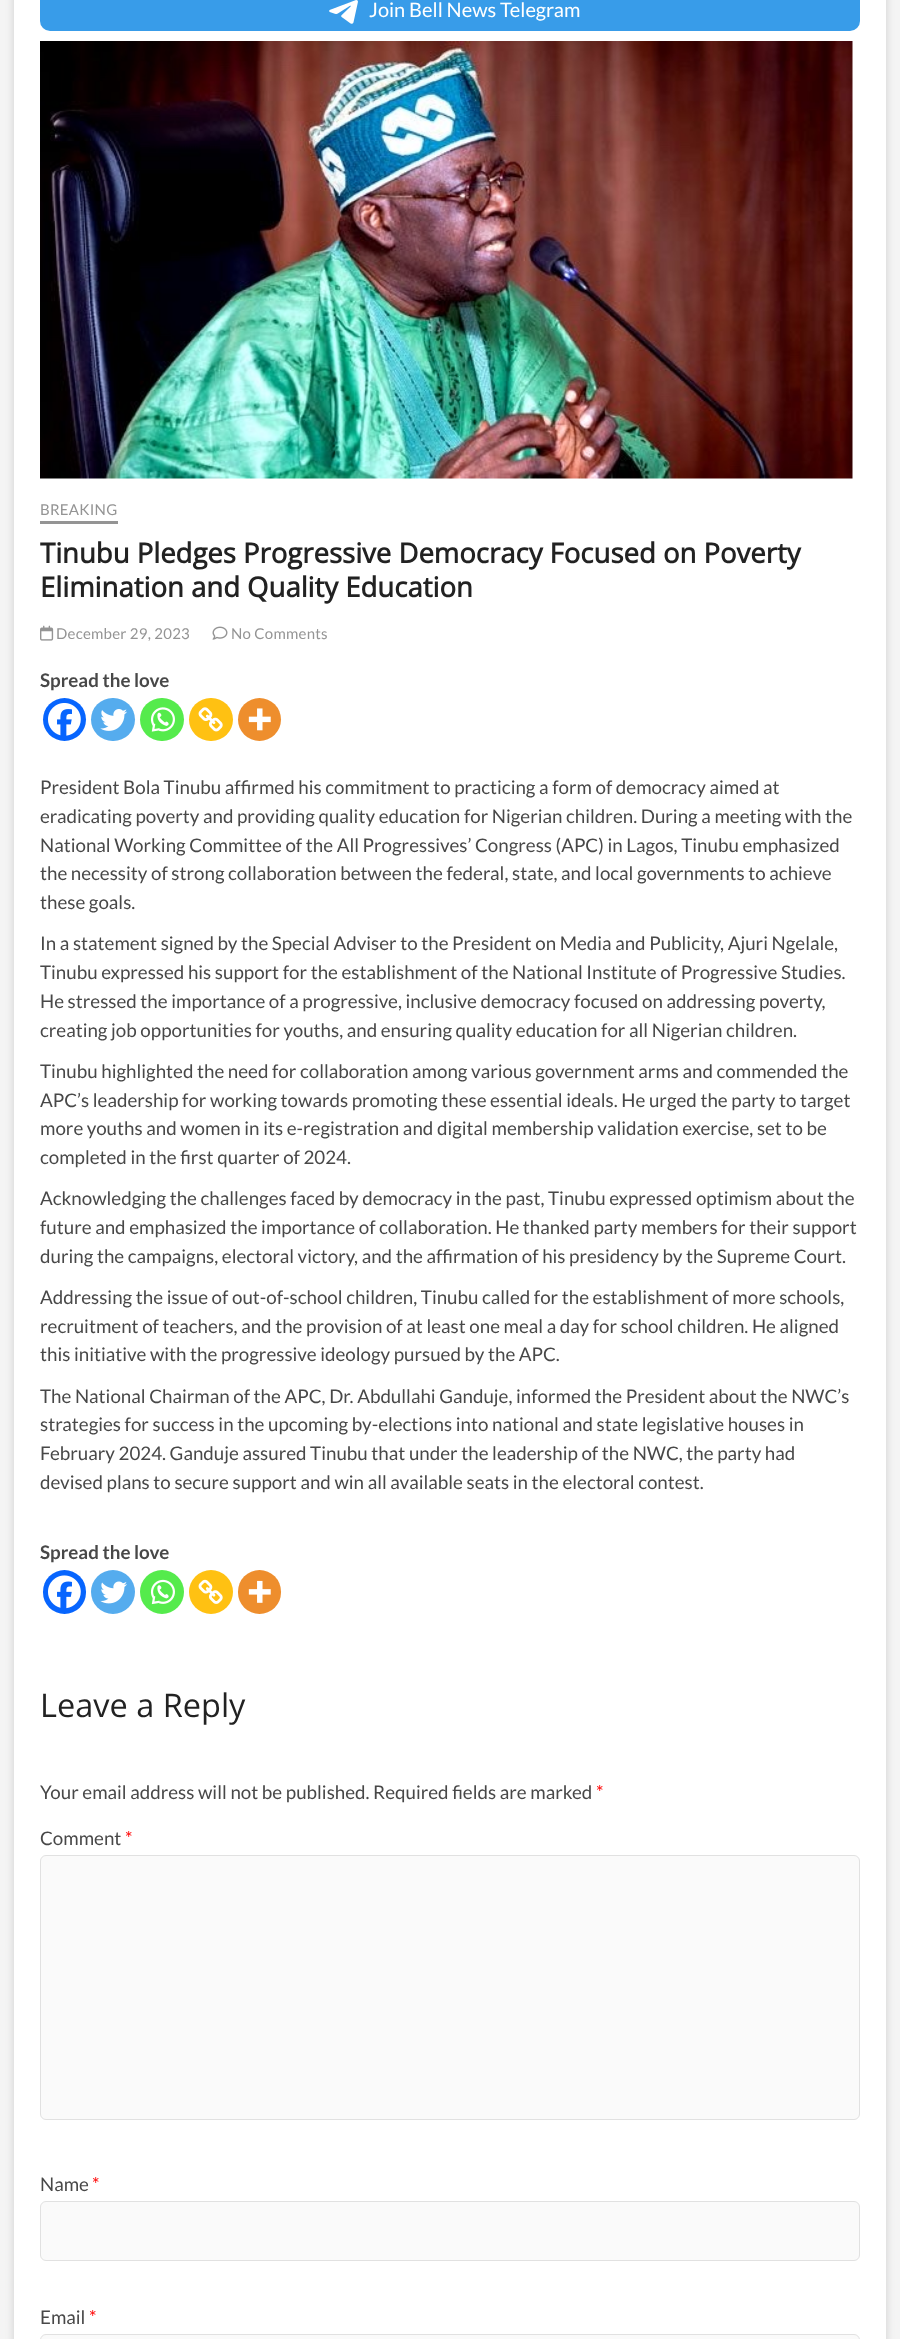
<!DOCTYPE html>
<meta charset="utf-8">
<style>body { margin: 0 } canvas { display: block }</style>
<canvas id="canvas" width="900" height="2339"></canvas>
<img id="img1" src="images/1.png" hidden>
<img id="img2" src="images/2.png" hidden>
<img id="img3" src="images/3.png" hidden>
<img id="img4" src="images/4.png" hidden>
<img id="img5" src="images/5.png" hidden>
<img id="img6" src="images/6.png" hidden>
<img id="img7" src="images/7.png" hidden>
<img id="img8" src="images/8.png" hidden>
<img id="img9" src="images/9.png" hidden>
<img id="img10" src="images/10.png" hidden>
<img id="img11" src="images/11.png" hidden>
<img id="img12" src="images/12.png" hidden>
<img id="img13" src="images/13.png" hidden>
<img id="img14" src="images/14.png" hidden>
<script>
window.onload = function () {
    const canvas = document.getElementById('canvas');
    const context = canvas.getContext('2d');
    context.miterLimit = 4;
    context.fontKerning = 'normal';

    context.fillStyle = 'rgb(244, 244, 244)';
    context.fillRect(0, 0, 900, 2339);
    context.fillStyle = 'rgba(0, 0, 0, 0.15)';
    context.filter = 'blur(4px)';
    context.beginPath();
    context.rect(14, -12, 872, 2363);
    context.fill();
    context.filter = 'none';
    context.fillStyle = 'rgb(255, 255, 255)';
    context.fillRect(14, 0, 872, 2339);
    context.fillStyle = 'rgb(56, 156, 233)';
    context.beginPath();
    context.roundRect(40, -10, 820, 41, 10);
    context.fill();
    context.drawImage(document.getElementById('img1'), 329, 0, 29, 24);
    context.drawImage(document.getElementById('img2'), 40, 41, 813, 438);
    context.fillStyle = 'rgb(148, 148, 148)';
    context.fillRect(40, 521, 78, 3);
    context.drawImage(document.getElementById('img3'), 40, 625, 14, 16);
    context.drawImage(document.getElementById('img4'), 212, 626, 16, 14);
    context.fillStyle = 'rgb(7, 101, 254)';
    context.beginPath();
    context.arc(64.5, 719.5, 21.5, 0, 2 * Math.PI);
    context.fill();
    context.drawImage(document.getElementById('img5'), 48, 703, 33, 33);
    context.fillStyle = 'rgb(85, 172, 238)';
    context.beginPath();
    context.roundRect(91, 698, 44, 43, 21.5);
    context.fill();
    context.drawImage(document.getElementById('img6'), 100, 709, 27, 22);
    context.fillStyle = 'rgb(85, 235, 76)';
    context.beginPath();
    context.roundRect(140, 698, 44, 43, 21.5);
    context.fill();
    context.drawImage(document.getElementById('img7'), 150, 707, 25, 25);
    context.fillStyle = 'rgb(255, 193, 18)';
    context.beginPath();
    context.roundRect(189, 698, 44, 43, 21.5);
    context.fill();
    context.drawImage(document.getElementById('img8'), 198, 707, 25, 25);
    context.fillStyle = 'rgb(238, 142, 45)';
    context.beginPath();
    context.arc(259.5, 719.5, 21.5, 0, 2 * Math.PI);
    context.fill();
    context.drawImage(document.getElementById('img9'), 248, 708, 23, 23);
    context.fillStyle = 'rgb(7, 101, 254)';
    context.beginPath();
    context.roundRect(43, 1570, 43, 44, 21.5);
    context.fill();
    context.drawImage(document.getElementById('img10'), 48, 1575, 33, 34);
    context.fillStyle = 'rgb(85, 172, 238)';
    context.beginPath();
    context.arc(113, 1592, 22, 0, 2 * Math.PI);
    context.fill();
    context.drawImage(document.getElementById('img11'), 100, 1581, 27, 23);
    context.fillStyle = 'rgb(85, 235, 76)';
    context.beginPath();
    context.arc(162, 1592, 22, 0, 2 * Math.PI);
    context.fill();
    context.drawImage(document.getElementById('img12'), 150, 1579, 25, 26);
    context.fillStyle = 'rgb(255, 193, 18)';
    context.beginPath();
    context.arc(211, 1592, 22, 0, 2 * Math.PI);
    context.fill();
    context.drawImage(document.getElementById('img13'), 198, 1579, 25, 25);
    context.fillStyle = 'rgb(238, 142, 45)';
    context.beginPath();
    context.roundRect(238, 1570, 43, 44, 21.5);
    context.fill();
    context.drawImage(document.getElementById('img14'), 248, 1580, 23, 23);
    context.fillStyle = 'rgb(250, 250, 250)';
    context.beginPath();
    context.roundRect(40.5, 1855.5, 819, 264, 5.5);
    context.fill();
    context.strokeStyle = 'rgb(225, 225, 225)';
    context.stroke();
    context.beginPath();
    context.roundRect(40.5, 2201.5, 819, 59, 5.5);
    context.fill();
    context.stroke();
    context.beginPath();
    context.roundRect(40.5, 2334.5, 819, 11, 5.5);
    context.fill();
    context.stroke();
    context.font = '20px Lato';
    context.fillStyle = 'rgb(255, 255, 255)';
    context.fillText('Join Bell News Telegram', 369, 17);
    context.letterSpacing = '0.25px';
    context.font = '15px Lato';
    context.fillStyle = 'rgb(148, 148, 148)';
    context.fillText('BREAKING', 40, 515);
    context.letterSpacing = '0px';
    context.font = 'bold 27.5px Open Sans';
    context.fillStyle = 'rgb(34, 34, 34)';
    context.fillText('Tinubu Pledges Progressive Democracy Focused on Poverty', 40, 563);
    context.fillText('Elimination and Quality Education', 40, 597);
    context.letterSpacing = '0.25px';
    context.font = '15px Lato';
    context.fillStyle = 'rgb(148, 148, 148)';
    context.fillText('December 29, 2023', 56, 639);
    context.fillText('No Comments', 231, 639);
    context.letterSpacing = '0px';
    context.font = 'bold 18.75px Lato';
    context.fillStyle = 'rgb(72, 72, 72)';
    context.fillText('Spread the love', 40, 687);
    context.font = '18.75px Lato';
    context.fillText('President Bola Tinubu affirmed his commitment to practicing a form of democracy aimed at', 40, 794);
    context.fillText('eradicating poverty and providing quality education for Nigerian children. During a meeting with the', 40, 823);
    context.fillText('National Working Committee of the All Progressives’ Congress (APC) in Lagos, Tinubu emphasized', 40, 852);
    context.fillText('the necessity of strong collaboration between the federal, state, and local governments to achieve', 40, 880);
    context.fillText('these goals.', 40, 909);
    context.fillText('In a statement signed by the Special Adviser to the President on Media and Publicity, Ajuri Ngelale,', 40, 950);
    context.fillText('Tinubu expressed his support for the establishment of the National Institute of Progressive Studies.', 40, 979);
    context.fillText('He stressed the importance of a progressive, inclusive democracy focused on addressing poverty,', 40, 1008);
    context.fillText('creating job opportunities for youths, and ensuring quality education for all Nigerian children.', 40, 1037);
    context.fillText('Tinubu highlighted the need for collaboration among various government arms and commended the', 40, 1078);
    context.fillText('APC’s leadership for working towards promoting these essential ideals. He urged the party to target', 40, 1107);
    context.fillText('more youths and women in its e-registration and digital membership validation exercise, set to be', 40, 1135);
    context.fillText('completed in the first quarter of 2024.', 40, 1164);
    context.fillText('Acknowledging the challenges faced by democracy in the past, Tinubu expressed optimism about the', 40, 1205);
    context.fillText('future and emphasized the importance of collaboration. He thanked party members for their support', 40, 1234);
    context.fillText('during the campaigns, electoral victory, and the affirmation of his presidency by the Supreme Court.', 40, 1263);
    context.fillText('Addressing the issue of out-of-school children, Tinubu called for the establishment of more schools,', 40, 1304);
    context.fillText('recruitment of teachers, and the provision of at least one meal a day for school children. He aligned', 40, 1333);
    context.fillText('this initiative with the progressive ideology pursued by the APC.', 40, 1361);
    context.fillText('The National Chairman of the APC, Dr. Abdullahi Ganduje, informed the President about the NWC’s', 40, 1403);
    context.fillText('strategies for success in the upcoming by-elections into national and state legislative houses in', 40, 1431);
    context.fillText('February 2024. Ganduje assured Tinubu that under the leadership of the NWC, the party had', 40, 1460);
    context.fillText('devised plans to secure support and win all available seats in the electoral contest.', 40, 1489);
    context.font = 'bold 18.75px Lato';
    context.fillText('Spread the love', 40, 1559);
    context.font = '32.5px Open Sans';
    context.fillStyle = 'rgb(34, 34, 34)';
    context.fillText('Leave a Reply', 40, 1717);
    context.font = '18.75px Lato';
    context.fillStyle = 'rgb(72, 72, 72)';
    context.fillText('Your email address will not be published. Required fields are marked', 40, 1799);
    context.fillStyle = 'rgb(255, 0, 0)';
    context.fillText('*', 596, 1799);
    context.fillStyle = 'rgb(72, 72, 72)';
    context.fillText('Comment', 40, 1845);
    context.fillStyle = 'rgb(255, 0, 0)';
    context.fillText('*', 125, 1845);
    context.fillStyle = 'rgb(72, 72, 72)';
    context.fillText('Name', 40, 2191);
    context.fillStyle = 'rgb(255, 0, 0)';
    context.fillText('*', 92, 2191);
    context.fillStyle = 'rgb(72, 72, 72)';
    context.fillText('Email', 40, 2324);
    context.fillStyle = 'rgb(255, 0, 0)';
    context.fillText('*', 89, 2324);
};
</script>
